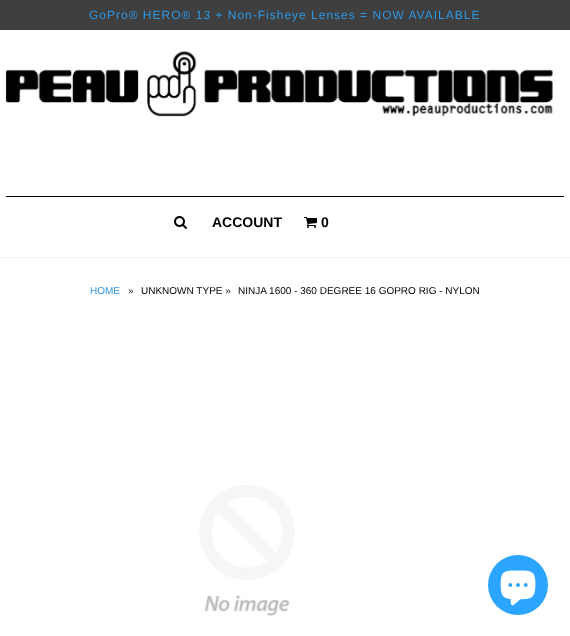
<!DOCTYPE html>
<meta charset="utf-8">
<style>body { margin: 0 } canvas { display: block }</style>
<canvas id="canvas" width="570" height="636"></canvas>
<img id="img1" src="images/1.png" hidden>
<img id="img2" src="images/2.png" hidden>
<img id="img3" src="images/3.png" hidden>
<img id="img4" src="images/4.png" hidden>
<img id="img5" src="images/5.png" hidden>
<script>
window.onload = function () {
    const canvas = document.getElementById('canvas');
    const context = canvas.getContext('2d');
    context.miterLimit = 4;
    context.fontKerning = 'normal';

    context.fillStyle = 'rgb(255, 255, 255)';
    context.fillRect(0, 0, 570, 636);
    context.fillStyle = 'rgb(240, 240, 240)';
    context.fillRect(0, 257, 570, 1);
    context.fillStyle = 'rgb(63, 63, 63)';
    context.fillRect(0, 0, 570, 30);
    context.drawImage(document.getElementById('img1'), 5, 51, 548, 66);
    context.fillStyle = 'rgb(0, 0, 0)';
    context.fillRect(6, 196, 558, 1);
    context.drawImage(document.getElementById('img2'), 174, 216, 13, 13);
    context.drawImage(document.getElementById('img3'), 304, 217, 13, 11);
    context.drawImage(document.getElementById('img4'), 199, 485, 96, 131);
    context.fillStyle = 'rgb(43, 165, 255)';
    context.beginPath();
    context.arc(518, 585, 30, 0, 2 * Math.PI);
    context.fill();
    context.drawImage(document.getElementById('img5'), 500, 570, 36, 36);
    context.letterSpacing = '1px';
    context.font = '12px Liberation Sans';
    context.fillStyle = 'rgb(47, 150, 226)';
    context.fillText('GoPro® HERO® 13 + Non-Fisheye Lenses = NOW AVAILABLE', 89, 19);
    context.letterSpacing = '0px';
    context.font = 'bold 14px Liberation Sans';
    context.fillStyle = 'rgb(0, 0, 0)';
    context.fillText('ACCOUNT', 212, 227);
    context.fillText('0', 321, 227);
    context.font = '10px Liberation Sans';
    context.fillStyle = 'rgb(47, 150, 226)';
    context.fillText('HOME', 90, 294);
    context.fillStyle = 'rgb(0, 0, 0)';
    context.fillText('»', 128, 294);
    context.fillText('UNKNOWN TYPE »', 141, 294);
    context.fillText('NINJA 1600 - 360 DEGREE 16 GOPRO RIG - NYLON', 238, 294);
};
</script>
